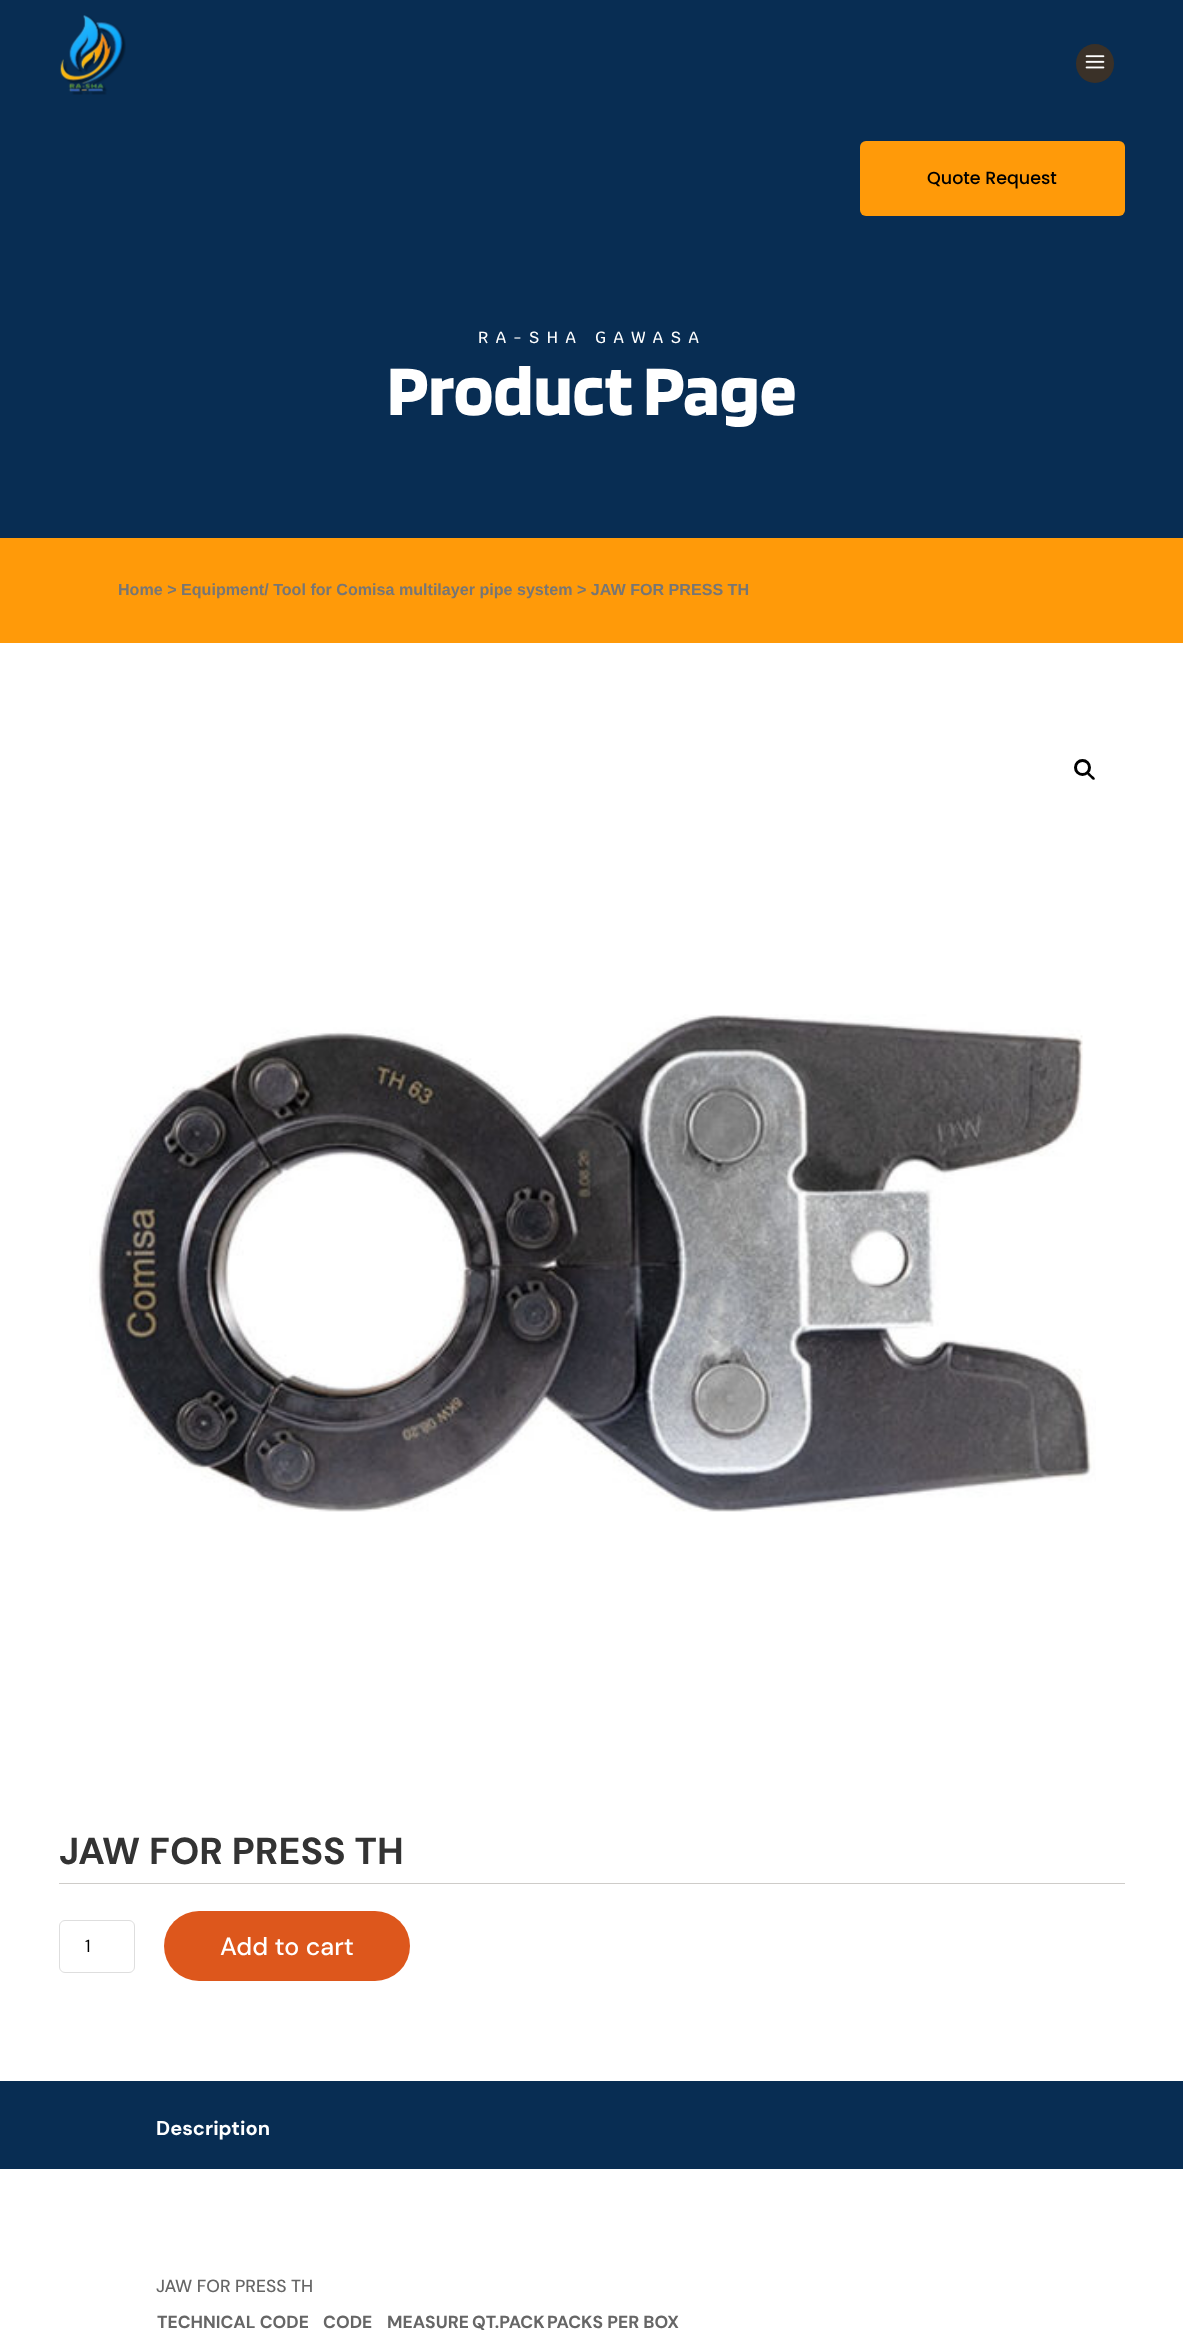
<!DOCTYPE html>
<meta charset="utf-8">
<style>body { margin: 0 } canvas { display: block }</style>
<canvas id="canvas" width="1183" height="2339"></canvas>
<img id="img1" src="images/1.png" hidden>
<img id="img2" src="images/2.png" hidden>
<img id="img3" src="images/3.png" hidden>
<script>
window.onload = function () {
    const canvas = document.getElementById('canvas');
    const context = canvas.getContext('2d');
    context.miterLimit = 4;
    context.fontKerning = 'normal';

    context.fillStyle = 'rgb(255, 255, 255)';
    context.fillRect(0, 0, 1183, 2339);
    context.fillStyle = 'rgb(8, 45, 83)';
    context.fillRect(0, 0, 1183, 538);
    context.drawImage(document.getElementById('img1'), 60, 15, 66, 80);
    context.fillStyle = 'rgb(58, 49, 40)';
    context.beginPath();
    context.roundRect(1076, 44, 38, 39, 19);
    context.fill();
    context.drawImage(document.getElementById('img2'), 1085, 55, 20, 14);
    context.fillStyle = 'rgb(255, 154, 9)';
    context.beginPath();
    context.roundRect(860, 141, 265, 75, 6);
    context.fill();
    context.fillRect(0, 538, 1183, 105);
    context.beginPath();
    context.arc(1082.5, 767.5, 7, 0, 2 * Math.PI);
    context.strokeStyle = 'rgb(0, 0, 0)';
    context.lineWidth = 3;
    context.stroke();
    context.fillStyle = 'rgb(0, 0, 0)';
    context.beginPath();
    context.moveTo(1087.5, 772.5);
    context.bezierCurveTo(1088.5, 771, 1091, 774.5, 1091.5, 775);
    context.bezierCurveTo(1092.5, 776, 1096, 778, 1094.5, 779.5);
    context.bezierCurveTo(1093, 781, 1090.5, 777.5, 1090, 777);
    context.bezierCurveTo(1089, 776, 1086, 774, 1087.5, 772.5);
    context.closePath();
    context.fill();
    context.drawImage(document.getElementById('img3'), 89, 1014, 1007, 498);
    context.fillStyle = 'rgb(206, 204, 201)';
    context.fillRect(59, 1883, 1066, 1);
    context.beginPath();
    context.roundRect(59.5, 1920.5, 75, 52, 5.5);
    context.strokeStyle = 'rgb(222, 222, 222)';
    context.lineWidth = 1;
    context.stroke();
    context.fillStyle = 'rgb(221, 87, 28)';
    context.beginPath();
    context.roundRect(164, 1911, 246, 70, 35);
    context.fill();
    context.fillStyle = 'rgb(8, 45, 83)';
    context.fillRect(0, 2081, 1183, 88);
    context.font = '500 17.5px Poppins';
    context.fillStyle = 'rgb(0, 0, 0)';
    context.fillText('Quote Request', 927, 184);
    context.letterSpacing = '7.5px';
    context.font = '500 16.25px Krub';
    context.fillStyle = 'rgb(255, 255, 255)';
    context.fillText('RA-SHA GAWASA', 478, 343);
    context.letterSpacing = '0px';
    context.font = 'bold 73.75px Blinker';
    context.fillText('Product Page', 387, 415);
    context.font = 'bold 16.1px Liberation Sans';
    context.fillStyle = 'rgb(118, 118, 118)';
    context.fillText('Home > Equipment/ Tool for Comisa multilayer pipe system > JAW FOR PRESS TH', 118, 595);
    context.font = 'bold 37.5px DM Sans';
    context.fillStyle = 'rgb(51, 51, 51)';
    context.fillText('JAW FOR PRESS TH', 59, 1864);
    context.font = '17.5px DM Sans';
    context.fillStyle = 'rgb(0, 0, 0)';
    context.fillText('1', 85, 1952);
    context.font = '500 25px DM Sans';
    context.fillStyle = 'rgb(255, 255, 255)';
    context.fillText('Add to cart', 220, 1955);
    context.font = 'bold 20px DM Sans';
    context.fillText('Description', 156, 2135);
    context.font = '500 17.5px DM Sans';
    context.fillStyle = 'rgb(102, 102, 102)';
    context.fillText('JAW FOR PRESS TH', 156, 2292);
    context.font = 'bold 17.5px DM Sans';
    context.fillText('TECHNICAL CODE', 157, 2328);
    context.fillText('CODE', 323, 2328);
    context.fillText('MEASURE', 387, 2328);
    context.fillText('QT.PACK', 472, 2328);
    context.fillText('PACKS PER BOX', 547, 2328);
};
</script>
